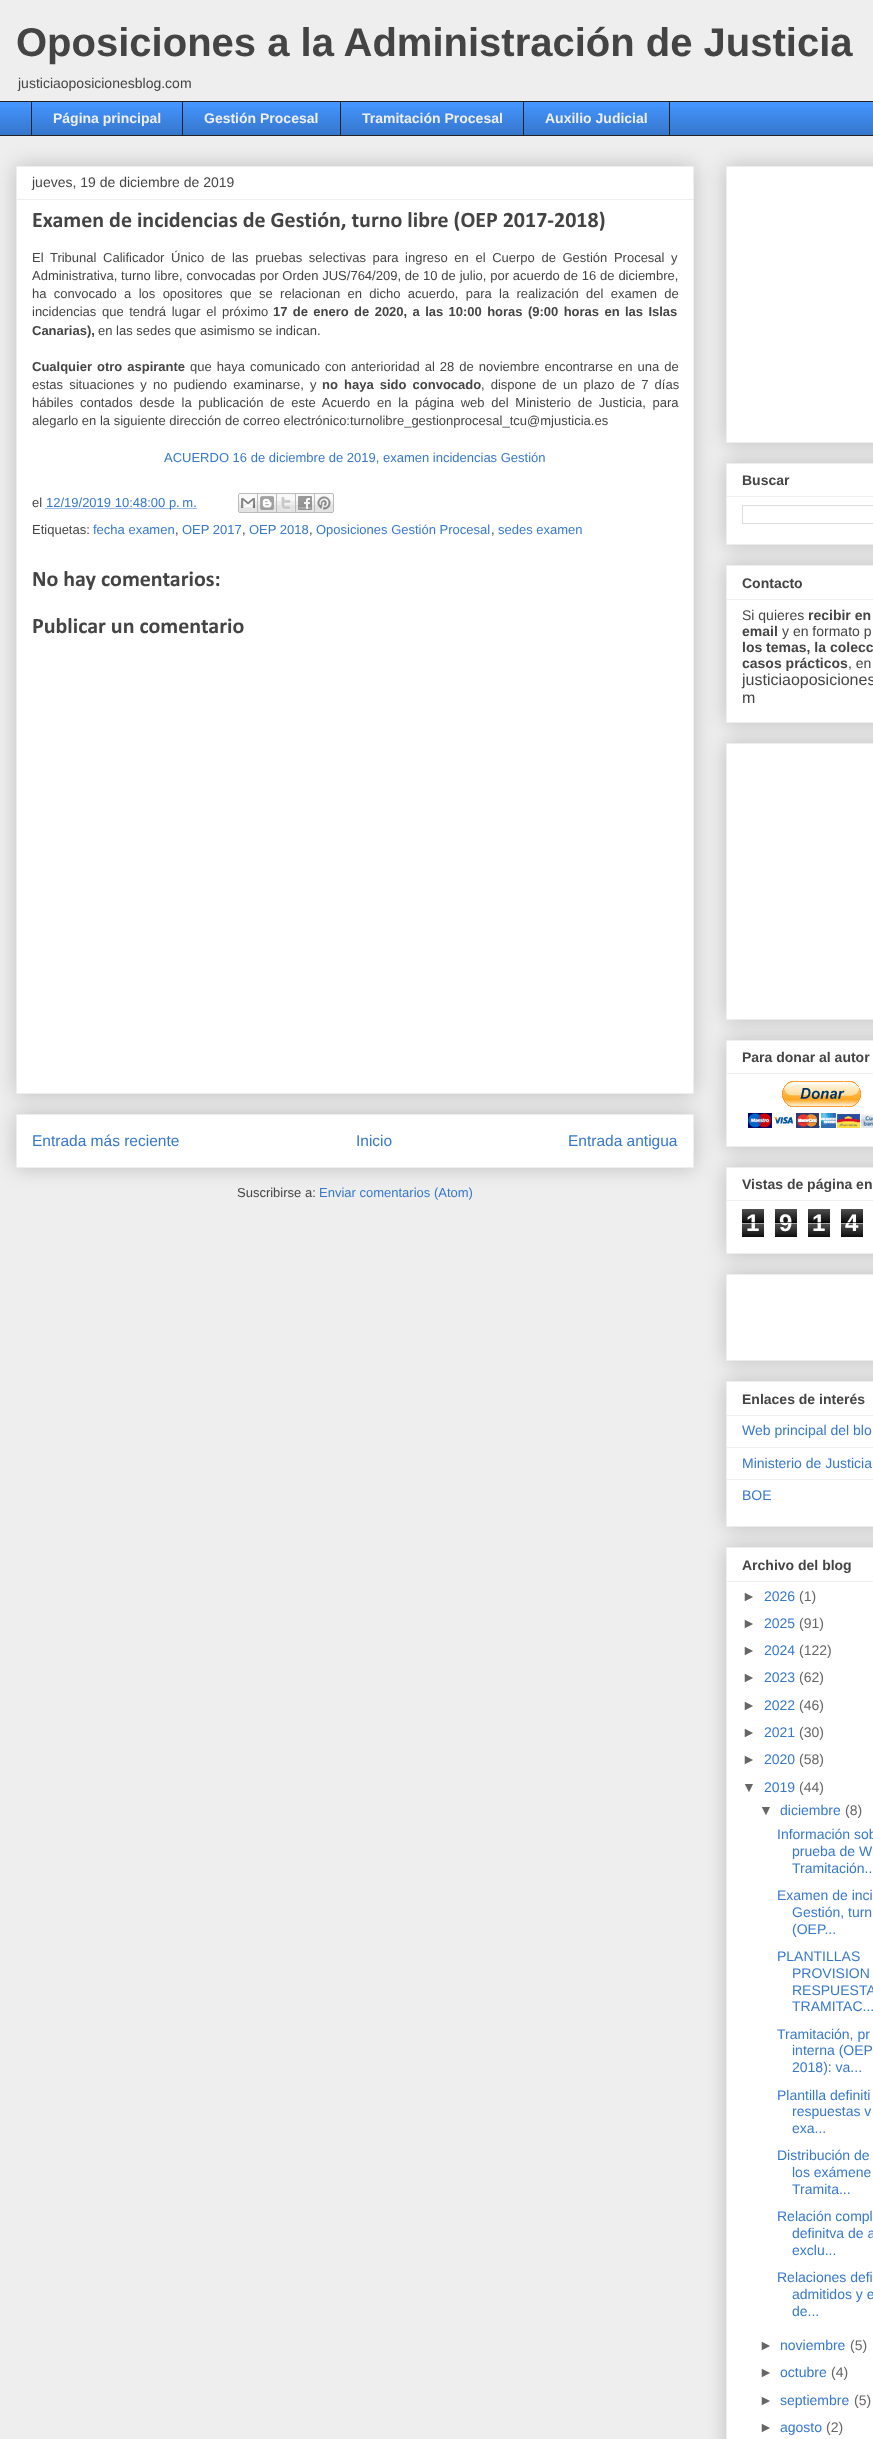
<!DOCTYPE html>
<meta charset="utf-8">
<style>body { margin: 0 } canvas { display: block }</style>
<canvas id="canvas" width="873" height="2439"></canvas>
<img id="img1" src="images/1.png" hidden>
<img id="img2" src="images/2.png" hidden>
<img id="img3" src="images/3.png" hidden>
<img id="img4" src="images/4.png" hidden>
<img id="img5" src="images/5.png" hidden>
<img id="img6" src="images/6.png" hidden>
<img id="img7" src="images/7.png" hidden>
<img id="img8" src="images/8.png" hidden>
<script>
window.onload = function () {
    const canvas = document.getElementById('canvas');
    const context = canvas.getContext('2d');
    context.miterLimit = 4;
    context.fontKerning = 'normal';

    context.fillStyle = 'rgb(238, 238, 238)';
    context.fillRect(0, 0, 873, 2439);
    context.fillStyle = 'rgb(68, 149, 255)';
    context.fillRect(0, 102, 873, 33);
    context.drawImage(document.getElementById('img1'), 0, 107, 873, 28);
    context.fillStyle = 'rgb(34, 34, 34)';
    context.fillRect(0, 101, 873, 1);
    context.fillRect(31, 101, 1, 35);
    context.fillRect(182, 101, 1, 35);
    context.fillRect(340, 101, 1, 35);
    context.strokeStyle = 'rgb(34, 34, 34)';
    context.strokeRect(523.5, 101.5, 146, 34);
    context.fillRect(0, 135, 873, 1);
    context.fillStyle = 'rgba(0, 0, 0, 0.2)';
    context.filter = 'blur(10px)';
    context.beginPath();
    context.rect(16, 1114, 678, 54);
    context.fill();
    context.filter = 'none';
    context.fillStyle = 'rgb(255, 255, 255)';
    context.beginPath();
    context.rect(16.5, 1114.5, 677, 53);
    context.fill();
    context.strokeStyle = 'rgb(238, 238, 238)';
    context.stroke();
    context.fillStyle = 'rgba(0, 0, 0, 0.2)';
    context.filter = 'blur(10px)';
    context.beginPath();
    context.rect(16, 166, 678, 928);
    context.fill();
    context.filter = 'none';
    context.fillStyle = 'rgb(255, 255, 255)';
    context.beginPath();
    context.rect(16.5, 166.5, 677, 927);
    context.fill();
    context.stroke();
    context.fillStyle = 'rgb(238, 238, 238)';
    context.fillRect(17, 199, 676, 1);
    context.beginPath();
    context.moveTo(45.5, 508.5);
    context.lineTo(196.5, 508.5);
    context.strokeStyle = 'rgb(55, 120, 205)';
    context.setLineDash([1, 1]);
    context.stroke();
    context.drawImage(document.getElementById('img2'), 238, 493, 20, 20);
    context.drawImage(document.getElementById('img3'), 258, 493, 19, 20);
    context.drawImage(document.getElementById('img4'), 277, 493, 19, 20);
    context.drawImage(document.getElementById('img5'), 296, 493, 19, 20);
    context.drawImage(document.getElementById('img6'), 315, 493, 19, 20);
    context.fillStyle = 'rgba(0, 0, 0, 0.2)';
    context.filter = 'blur(10px)';
    context.beginPath();
    context.rect(726, 166, 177, 277);
    context.fill();
    context.filter = 'none';
    context.fillStyle = 'rgb(255, 255, 255)';
    context.beginPath();
    context.rect(726.5, 166.5, 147, 276);
    context.fill();
    context.strokeStyle = 'rgb(238, 238, 238)';
    context.setLineDash([]);
    context.stroke();
    context.fillStyle = 'rgba(0, 0, 0, 0.2)';
    context.filter = 'blur(10px)';
    context.beginPath();
    context.rect(726, 463, 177, 82);
    context.fill();
    context.filter = 'none';
    context.fillStyle = 'rgb(255, 255, 255)';
    context.beginPath();
    context.rect(726.5, 463.5, 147, 81);
    context.fill();
    context.stroke();
    context.fillStyle = 'rgb(238, 238, 238)';
    context.fillRect(727, 496, 146, 1);
    context.strokeStyle = 'rgb(221, 221, 221)';
    context.strokeRect(742.5, 505.5, 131, 18);
    context.fillStyle = 'rgba(0, 0, 0, 0.2)';
    context.filter = 'blur(10px)';
    context.beginPath();
    context.rect(726, 565, 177, 158);
    context.fill();
    context.filter = 'none';
    context.fillStyle = 'rgb(255, 255, 255)';
    context.beginPath();
    context.rect(726.5, 565.5, 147, 157);
    context.fill();
    context.strokeStyle = 'rgb(238, 238, 238)';
    context.stroke();
    context.fillStyle = 'rgb(238, 238, 238)';
    context.fillRect(727, 599, 146, 1);
    context.fillStyle = 'rgba(0, 0, 0, 0.2)';
    context.filter = 'blur(10px)';
    context.beginPath();
    context.rect(726, 743, 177, 277);
    context.fill();
    context.filter = 'none';
    context.fillStyle = 'rgb(255, 255, 255)';
    context.beginPath();
    context.rect(726.5, 743.5, 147, 276);
    context.fill();
    context.stroke();
    context.fillStyle = 'rgba(0, 0, 0, 0.2)';
    context.filter = 'blur(10px)';
    context.beginPath();
    context.rect(726, 1040, 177, 107);
    context.fill();
    context.filter = 'none';
    context.fillStyle = 'rgb(255, 255, 255)';
    context.beginPath();
    context.rect(726.5, 1040.5, 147, 106);
    context.fill();
    context.stroke();
    context.fillStyle = 'rgb(238, 238, 238)';
    context.fillRect(727, 1073, 146, 1);
    context.drawImage(document.getElementById('img7'), 748, 1081, 125, 47);
    context.fillStyle = 'rgba(0, 0, 0, 0.2)';
    context.filter = 'blur(10px)';
    context.beginPath();
    context.rect(726, 1167, 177, 87);
    context.fill();
    context.filter = 'none';
    context.fillStyle = 'rgb(255, 255, 255)';
    context.beginPath();
    context.rect(726.5, 1167.5, 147, 86);
    context.fill();
    context.stroke();
    context.fillStyle = 'rgb(238, 238, 238)';
    context.fillRect(727, 1200, 146, 1);
    context.drawImage(document.getElementById('img8'), 742, 1209, 22, 28);
    context.drawImage(document.getElementById('img8'), 775, 1209, 22, 28);
    context.drawImage(document.getElementById('img8'), 808, 1209, 22, 28);
    context.drawImage(document.getElementById('img8'), 841, 1209, 22, 28);
    context.fillStyle = 'rgba(0, 0, 0, 0.2)';
    context.filter = 'blur(10px)';
    context.beginPath();
    context.rect(726, 1274, 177, 87);
    context.fill();
    context.filter = 'none';
    context.fillStyle = 'rgb(255, 255, 255)';
    context.beginPath();
    context.rect(726.5, 1274.5, 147, 86);
    context.fill();
    context.stroke();
    context.fillStyle = 'rgba(0, 0, 0, 0.2)';
    context.filter = 'blur(10px)';
    context.beginPath();
    context.rect(726, 1381, 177, 146);
    context.fill();
    context.filter = 'none';
    context.fillStyle = 'rgb(255, 255, 255)';
    context.beginPath();
    context.rect(726.5, 1381.5, 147, 145);
    context.fill();
    context.stroke();
    context.fillStyle = 'rgb(238, 238, 238)';
    context.fillRect(727, 1415, 146, 1);
    context.fillRect(727, 1447, 146, 1);
    context.fillRect(727, 1479, 146, 1);
    context.fillStyle = 'rgba(0, 0, 0, 0.2)';
    context.filter = 'blur(10px)';
    context.beginPath();
    context.rect(726, 1547, 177, 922);
    context.fill();
    context.filter = 'none';
    context.fillStyle = 'rgb(255, 255, 255)';
    context.beginPath();
    context.rect(726.5, 1547.5, 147, 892);
    context.fill();
    context.stroke();
    context.fillStyle = 'rgb(238, 238, 238)';
    context.fillRect(727, 1581, 146, 1);
    context.font = 'bold 40px Liberation Sans';
    context.fillStyle = 'rgb(68, 68, 68)';
    context.fillText('Oposiciones a la Administración de Justicia', 16, 56);
    context.font = '14px Liberation Sans';
    context.fillText('justiciaoposicionesblog.com', 18, 88);
    context.font = 'bold 14px Liberation Sans';
    context.fillStyle = 'rgb(238, 238, 238)';
    context.fillText('Página principal', 53, 123);
    context.fillText('Gestión Procesal', 204, 123);
    context.fillText('Tramitación Procesal', 362, 123);
    context.fillText('Auxilio Judicial', 545, 123);
    context.font = '14px Liberation Sans';
    context.fillStyle = 'rgb(68, 68, 68)';
    context.fillText('jueves, 19 de diciembre de 2019', 32, 187);
    context.font = 'bold 22px Calibri';
    context.fillText('Examen de incidencias de Gestión, turno libre (OEP 2017-2018)', 32, 227);
    context.wordSpacing = '3px';
    context.font = '13px Liberation Sans';
    context.fillText('El Tribunal Calificador Único de las pruebas selectivas para ingreso en el Cuerpo de Gestión Procesal y', 32, 262);
    context.wordSpacing = '0.2px';
    context.fillText('Administrativa, turno libre, convocadas por Orden JUS/764/209, de 10 de julio, por acuerdo de 16 de diciembre,', 32, 280);
    context.wordSpacing = '3.75px';
    context.fillText('ha convocado a los opositores que se relacionan en dicho acuerdo, para la realización del examen de', 32, 298);
    context.wordSpacing = '2px';
    context.fillText('incidencias que tendrá lugar el próximo', 32, 316);
    context.wordSpacing = '1.75px';
    context.font = 'bold 13px Liberation Sans';
    context.fillText('17 de enero de 2020, a las 10:00 horas (9:00 horas en las Islas', 273, 316);
    context.wordSpacing = '0px';
    context.fillText('Canarias),', 32, 335);
    context.font = '13px Liberation Sans';
    context.fillText('en las sedes que asimismo se indican.', 98, 335);
    context.wordSpacing = '1.4px';
    context.font = 'bold 13px Liberation Sans';
    context.fillText('Cualquier otro aspirante', 32, 371);
    context.font = '13px Liberation Sans';
    context.fillText('que haya comunicado con anterioridad al 28 de noviembre encontrarse en una de', 190, 371);
    context.wordSpacing = '2.5px';
    context.fillText('estas situaciones y no pudiendo examinarse, y', 32, 389);
    context.font = 'bold 13px Liberation Sans';
    context.fillText('no haya sido convocado', 322, 389);
    context.font = '13px Liberation Sans';
    context.fillText(', dispone de un plazo de 7 días', 481, 389);
    context.wordSpacing = '3.1px';
    context.fillText('hábiles contados desde la publicación de este Acuerdo en la página web del Ministerio de Justicia, para', 32, 407);
    context.wordSpacing = '0px';
    context.fillText('alegarlo en la siguiente dirección de correo electrónico:turnolibre_gestionprocesal_tcu@mjusticia.es', 32, 425);
    context.fillStyle = 'rgb(55, 120, 205)';
    context.fillText('ACUERDO 16 de diciembre de 2019, examen incidencias Gestión', 164, 462);
    context.fillStyle = 'rgb(68, 68, 68)';
    context.fillText('el', 32, 507);
    context.fillStyle = 'rgb(55, 120, 205)';
    context.fillText('12/19/2019 10:48:00 p. m.', 46, 507);
    context.fillStyle = 'rgb(68, 68, 68)';
    context.fillText('Etiquetas:', 32, 534);
    context.fillStyle = 'rgb(55, 120, 205)';
    context.fillText('fecha examen', 93, 534);
    context.fillStyle = 'rgb(68, 68, 68)';
    context.fillText(',', 175, 534);
    context.fillStyle = 'rgb(55, 120, 205)';
    context.fillText('OEP 2017', 182, 534);
    context.fillStyle = 'rgb(68, 68, 68)';
    context.fillText(',', 242, 534);
    context.fillStyle = 'rgb(55, 120, 205)';
    context.fillText('OEP 2018', 249, 534);
    context.fillStyle = 'rgb(68, 68, 68)';
    context.fillText(',', 309, 534);
    context.fillStyle = 'rgb(55, 120, 205)';
    context.fillText('Oposiciones Gestión Procesal', 316, 534);
    context.fillStyle = 'rgb(68, 68, 68)';
    context.fillText(',', 491, 534);
    context.fillStyle = 'rgb(55, 120, 205)';
    context.fillText('sedes examen', 498, 534);
    context.font = 'bold 22px Calibri';
    context.fillStyle = 'rgb(68, 68, 68)';
    context.fillText('No hay comentarios:', 32, 586);
    context.fillText('Publicar un comentario', 32, 633);
    context.font = '15.5px Liberation Sans';
    context.fillStyle = 'rgb(55, 120, 205)';
    context.fillText('Entrada más reciente', 32, 1146);
    context.fillText('Inicio', 356, 1146);
    context.fillText('Entrada antigua', 568, 1146);
    context.font = '13px Liberation Sans';
    context.fillStyle = 'rgb(68, 68, 68)';
    context.fillText('Suscribirse a:', 237, 1197);
    context.fillStyle = 'rgb(55, 120, 205)';
    context.fillText('Enviar comentarios (Atom)', 319, 1197);
    context.font = 'bold 14px Liberation Sans';
    context.fillStyle = 'rgb(68, 68, 68)';
    context.fillText('Buscar', 742, 485);
    context.fillText('Contacto', 742, 588);
    context.font = '14px Liberation Sans';
    context.fillText('Si quieres', 742, 620);
    context.font = 'bold 14px Liberation Sans';
    context.fillText('recibir en', 808, 620);
    context.fillText('email', 742, 636);
    context.font = '14px Liberation Sans';
    context.fillText('y en formato p', 782, 636);
    context.font = 'bold 14px Liberation Sans';
    context.fillText('los temas, la colecc', 742, 652);
    context.fillText('casos prácticos', 742, 668);
    context.font = '14px Liberation Sans';
    context.fillText(', en', 848, 668);
    context.font = '16px Liberation Sans';
    context.fillText('justiciaoposiciones', 742, 685);
    context.fillText('m', 742, 703);
    context.font = 'bold 14px Liberation Sans';
    context.fillText('Para donar al autor', 742, 1062);
    context.fillText('Vistas de página en', 742, 1189);
    context.font = 'bold 24px Liberation Sans';
    context.fillStyle = 'rgb(255, 255, 255)';
    context.fillText('1', 746, 1231);
    context.fillStyle = 'rgba(0, 0, 0, 0.65)';
    context.fillRect(742, 1222, 22, 1);
    context.fillStyle = 'rgba(255, 255, 255, 0.65)';
    context.fillRect(742, 1223, 22, 1);
    context.fillStyle = 'rgb(255, 255, 255)';
    context.fillText('9', 779, 1231);
    context.fillStyle = 'rgba(0, 0, 0, 0.65)';
    context.fillRect(775, 1222, 22, 1);
    context.fillStyle = 'rgba(255, 255, 255, 0.65)';
    context.fillRect(775, 1223, 22, 1);
    context.fillStyle = 'rgb(255, 255, 255)';
    context.fillText('1', 812, 1231);
    context.fillStyle = 'rgba(0, 0, 0, 0.65)';
    context.fillRect(808, 1222, 22, 1);
    context.fillStyle = 'rgba(255, 255, 255, 0.65)';
    context.fillRect(808, 1223, 22, 1);
    context.fillStyle = 'rgb(255, 255, 255)';
    context.fillText('4', 845, 1231);
    context.fillStyle = 'rgba(0, 0, 0, 0.65)';
    context.fillRect(841, 1222, 22, 1);
    context.fillStyle = 'rgba(255, 255, 255, 0.65)';
    context.fillRect(841, 1223, 22, 1);
    context.font = 'bold 14px Liberation Sans';
    context.fillStyle = 'rgb(68, 68, 68)';
    context.fillText('Enlaces de interés', 742, 1404);
    context.font = '14px Liberation Sans';
    context.fillStyle = 'rgb(55, 120, 205)';
    context.fillText('Web principal del blo', 742, 1435);
    context.fillText('Ministerio de Justicia', 742, 1468);
    context.fillText('BOE', 742, 1500);
    context.font = 'bold 14px Liberation Sans';
    context.fillStyle = 'rgb(68, 68, 68)';
    context.fillText('Archivo del blog', 742, 1570);
    context.font = '14px Liberation Sans';
    context.fillStyle = 'rgb(102, 102, 102)';
    context.fillText('►', 742, 1601);
    context.fillStyle = 'rgb(55, 120, 205)';
    context.fillText('2026', 764, 1601);
    context.fillStyle = 'rgb(102, 102, 102)';
    context.fillText('(1)', 799, 1601);
    context.fillText('►', 742, 1628);
    context.fillStyle = 'rgb(55, 120, 205)';
    context.fillText('2025', 764, 1628);
    context.fillStyle = 'rgb(102, 102, 102)';
    context.fillText('(91)', 799, 1628);
    context.fillText('►', 742, 1655);
    context.fillStyle = 'rgb(55, 120, 205)';
    context.fillText('2024', 764, 1655);
    context.fillStyle = 'rgb(102, 102, 102)';
    context.fillText('(122)', 799, 1655);
    context.fillText('►', 742, 1682);
    context.fillStyle = 'rgb(55, 120, 205)';
    context.fillText('2023', 764, 1682);
    context.fillStyle = 'rgb(102, 102, 102)';
    context.fillText('(62)', 799, 1682);
    context.fillText('►', 742, 1710);
    context.fillStyle = 'rgb(55, 120, 205)';
    context.fillText('2022', 764, 1710);
    context.fillStyle = 'rgb(102, 102, 102)';
    context.fillText('(46)', 799, 1710);
    context.fillText('►', 742, 1737);
    context.fillStyle = 'rgb(55, 120, 205)';
    context.fillText('2021', 764, 1737);
    context.fillStyle = 'rgb(102, 102, 102)';
    context.fillText('(30)', 799, 1737);
    context.fillText('►', 742, 1764);
    context.fillStyle = 'rgb(55, 120, 205)';
    context.fillText('2020', 764, 1764);
    context.fillStyle = 'rgb(102, 102, 102)';
    context.fillText('(58)', 799, 1764);
    context.fillText('▼', 742, 1792);
    context.fillStyle = 'rgb(55, 120, 205)';
    context.fillText('2019', 764, 1792);
    context.fillStyle = 'rgb(102, 102, 102)';
    context.fillText('(44)', 799, 1792);
    context.fillText('▼', 759, 1815);
    context.fillStyle = 'rgb(55, 120, 205)';
    context.fillText('diciembre', 780, 1815);
    context.fillStyle = 'rgb(102, 102, 102)';
    context.fillText('(8)', 845, 1815);
    context.fillStyle = 'rgb(55, 120, 205)';
    context.fillText('Información sob', 777, 1839);
    context.fillText('prueba de W', 792, 1856);
    context.fillText('Tramitación..', 792, 1873);
    context.fillText('Examen de inci', 777, 1900);
    context.fillText('Gestión, turn', 792, 1917);
    context.fillText('(OEP...', 792, 1934);
    context.fillText('PLANTILLAS', 777, 1961);
    context.fillText('PROVISION', 792, 1978);
    context.fillText('RESPUESTA', 792, 1995);
    context.fillText('TRAMITAC...', 792, 2011);
    context.fillText('Tramitación, pr', 777, 2039);
    context.fillText('interna (OEP', 792, 2055);
    context.fillText('2018): va...', 792, 2072);
    context.fillText('Plantilla definiti', 777, 2100);
    context.fillText('respuestas v', 792, 2116);
    context.fillText('exa...', 792, 2133);
    context.fillText('Distribución de', 777, 2160);
    context.fillText('los exámene', 792, 2177);
    context.fillText('Tramita...', 792, 2194);
    context.fillText('Relación compl', 777, 2221);
    context.fillText('definitva de a', 792, 2238);
    context.fillText('exclu...', 792, 2255);
    context.fillText('Relaciones defi', 777, 2282);
    context.fillText('admitidos y e', 792, 2299);
    context.fillText('de...', 792, 2316);
    context.fillStyle = 'rgb(102, 102, 102)';
    context.fillText('►', 759, 2350);
    context.fillStyle = 'rgb(55, 120, 205)';
    context.fillText('noviembre', 780, 2350);
    context.fillStyle = 'rgb(102, 102, 102)';
    context.fillText('(5)', 850, 2350);
    context.fillText('►', 759, 2377);
    context.fillStyle = 'rgb(55, 120, 205)';
    context.fillText('octubre', 780, 2377);
    context.fillStyle = 'rgb(102, 102, 102)';
    context.fillText('(4)', 831, 2377);
    context.fillText('►', 759, 2405);
    context.fillStyle = 'rgb(55, 120, 205)';
    context.fillText('septiembre', 780, 2405);
    context.fillStyle = 'rgb(102, 102, 102)';
    context.fillText('(5)', 854, 2405);
    context.fillText('►', 759, 2432);
    context.fillStyle = 'rgb(55, 120, 205)';
    context.fillText('agosto', 780, 2432);
    context.fillStyle = 'rgb(102, 102, 102)';
    context.fillText('(2)', 826, 2432);
};
</script>
